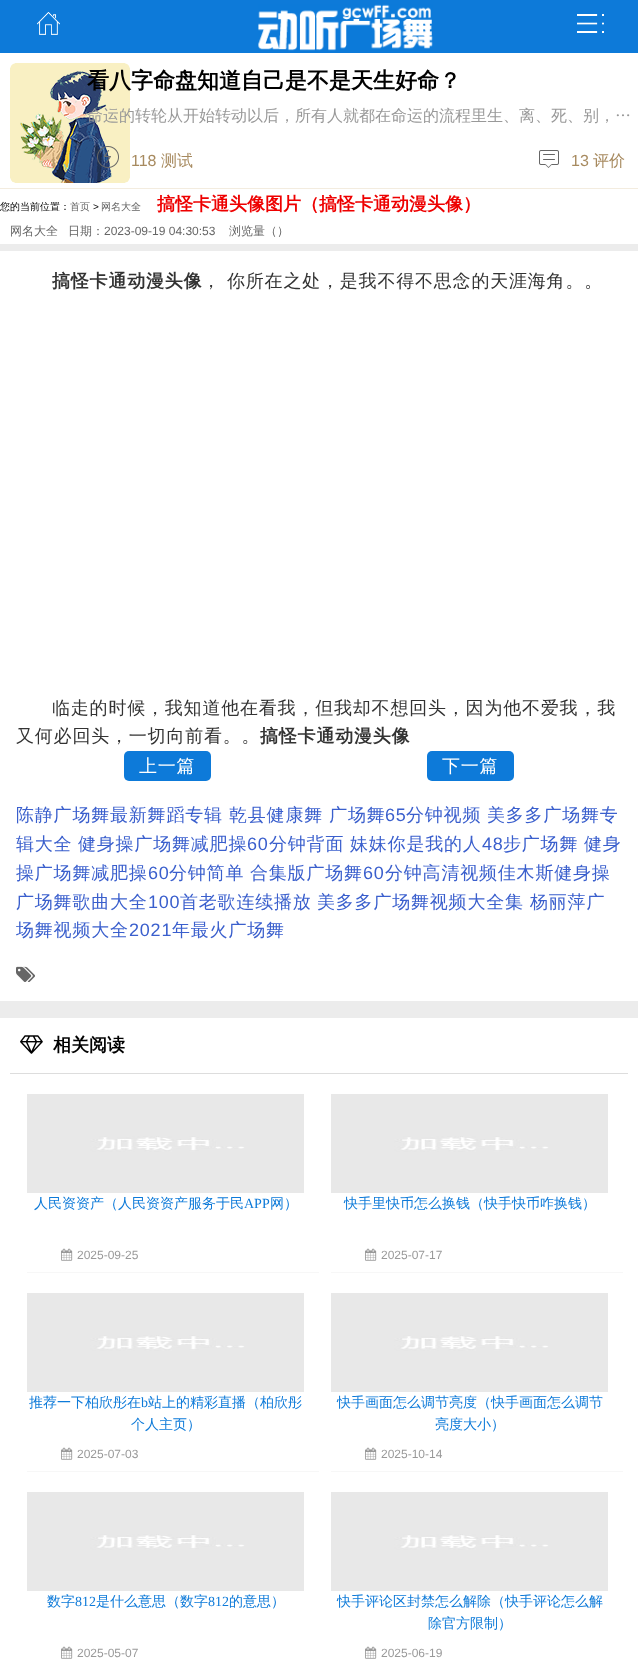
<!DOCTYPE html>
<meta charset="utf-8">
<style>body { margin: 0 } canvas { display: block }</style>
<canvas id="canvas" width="638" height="1663"></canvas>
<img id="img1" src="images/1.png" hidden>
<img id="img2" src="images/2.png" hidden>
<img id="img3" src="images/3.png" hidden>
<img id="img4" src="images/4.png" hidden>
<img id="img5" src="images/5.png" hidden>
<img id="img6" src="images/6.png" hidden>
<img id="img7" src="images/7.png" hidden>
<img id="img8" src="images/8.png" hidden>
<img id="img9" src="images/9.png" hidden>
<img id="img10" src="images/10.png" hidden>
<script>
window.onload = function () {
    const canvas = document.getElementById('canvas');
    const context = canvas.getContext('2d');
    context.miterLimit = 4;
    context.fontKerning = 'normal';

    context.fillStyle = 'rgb(236, 236, 236)';
    context.fillRect(0, 0, 638, 1663);
    context.fillStyle = 'rgb(13, 122, 217)';
    context.fillRect(0, 0, 638, 53);
    context.drawImage(document.getElementById('img1'), 37, 12, 23, 23);
    context.drawImage(document.getElementById('img2'), 258, 4, 175, 47);
    context.drawImage(document.getElementById('img3'), 577, 14, 27, 19);
    context.fillStyle = 'rgb(255, 255, 255)';
    context.fillRect(0, 53, 638, 135);
    context.fillStyle = 'rgb(243, 236, 223)';
    context.fillRect(0, 188, 638, 1);
    context.drawImage(document.getElementById('img4'), 10, 63, 120, 120);
    context.drawImage(document.getElementById('img5'), 97, 146, 22, 22);
    context.drawImage(document.getElementById('img6'), 539, 150, 20, 18);
    context.fillStyle = 'rgb(255, 255, 255)';
    context.fillRect(0, 189, 638, 55);
    context.fillRect(0, 251, 638, 750);
    context.fillStyle = 'rgb(13, 122, 217)';
    context.beginPath();
    context.roundRect(124, 751, 87, 30, 5);
    context.fill();
    context.beginPath();
    context.roundRect(427, 751, 87, 30, 5);
    context.fill();
    context.drawImage(document.getElementById('img7'), 16, 966, 19, 16);
    context.fillStyle = 'rgb(255, 255, 255)';
    context.fillRect(0, 1018, 638, 645);
    context.fillStyle = 'rgb(221, 221, 221)';
    context.fillRect(10, 1073, 618, 1);
    context.drawImage(document.getElementById('img8'), 20, 1035, 23, 19);
    context.fillStyle = 'rgb(247, 247, 247)';
    context.fillRect(27, 1272, 292, 1);
    context.drawImage(document.getElementById('img9'), 27, 1094, 277, 99);
    context.drawImage(document.getElementById('img10'), 61, 1248, 12, 13);
    context.fillRect(331, 1272, 292, 1);
    context.drawImage(document.getElementById('img9'), 331, 1094, 277, 99);
    context.drawImage(document.getElementById('img10'), 365, 1248, 12, 13);
    context.fillRect(27, 1471, 292, 1);
    context.drawImage(document.getElementById('img9'), 27, 1293, 277, 99);
    context.drawImage(document.getElementById('img10'), 61, 1447, 12, 13);
    context.fillRect(331, 1471, 292, 1);
    context.drawImage(document.getElementById('img9'), 331, 1293, 277, 99);
    context.drawImage(document.getElementById('img10'), 365, 1447, 12, 13);
    context.drawImage(document.getElementById('img9'), 27, 1492, 277, 99);
    context.drawImage(document.getElementById('img10'), 61, 1646, 12, 13);
    context.drawImage(document.getElementById('img9'), 331, 1492, 277, 99);
    context.drawImage(document.getElementById('img10'), 365, 1646, 12, 13);
    context.font = 'bold 22px WenQuanYi Zen Hei';
    context.fillStyle = 'rgb(0, 0, 0)';
    context.fillText('看八字命盘知道自己是不是天生好命？', 87, 88);
    context.font = '500 16px WenQuanYi Zen Hei';
    context.fillStyle = 'rgb(153, 153, 153)';
    context.fillText('命运的转轮从开始转动以后，所有人就都在命运的流程里生、离、死、别，…', 87, 121);
    context.font = '16px Liberation Sans';
    context.fillStyle = 'rgb(167, 138, 95)';
    context.fillText('118', 131, 166);
    context.font = '500 16px WenQuanYi Zen Hei';
    context.fillText('测试', 161, 166);
    context.font = '16px Liberation Sans';
    context.fillText('13', 571, 166);
    context.font = '500 16px WenQuanYi Zen Hei';
    context.fillText('评价', 593, 166);
    context.font = 'bold 18px WenQuanYi Zen Hei';
    context.fillStyle = 'rgb(238, 0, 0)';
    context.fillText('搞怪卡通头像图片（搞怪卡通动漫头像）', 157, 210);
    context.font = '500 12px WenQuanYi Zen Hei';
    context.fillStyle = 'rgb(102, 102, 102)';
    context.fillText('网名大全', 10, 235);
    context.fillText('日期：', 68, 235);
    context.font = '12px Liberation Sans';
    context.fillText('2023-09-19 04:30:53', 104, 235);
    context.font = '500 12px WenQuanYi Zen Hei';
    context.fillText('浏览量（）', 229, 235);
    context.font = '500 10px WenQuanYi Zen Hei';
    context.fillStyle = 'rgb(0, 0, 0)';
    context.fillText('您的当前位置：', 0, 210);
    context.fillStyle = 'rgb(102, 102, 102)';
    context.fillText('首页', 70, 210);
    context.font = '10px Liberation Sans';
    context.fillStyle = 'rgb(0, 0, 0)';
    context.fillText('>', 93, 210);
    context.font = '500 10px WenQuanYi Zen Hei';
    context.fillStyle = 'rgb(102, 102, 102)';
    context.fillText('网名大全', 101, 210);
    context.letterSpacing = '0.8px';
    context.font = 'bold 18px WenQuanYi Zen Hei';
    context.fillStyle = 'rgb(51, 51, 51)';
    context.fillText('搞怪卡通动漫头像', 52, 287);
    context.font = '500 18px WenQuanYi Zen Hei';
    context.fillText('， 你所在之处，是我不得不思念的天涯海角。。', 202, 287);
    context.fillText('临走的时候，我知道他在看我，但我却不想回头，因为他不爱我，我', 52, 714);
    context.fillText('又何必回头，一切向前看。。', 16, 742);
    context.font = 'bold 18px WenQuanYi Zen Hei';
    context.fillText('搞怪卡通动漫头像', 260, 742);
    context.font = '500 18px WenQuanYi Zen Hei';
    context.fillStyle = 'rgb(255, 255, 255)';
    context.fillText('上一篇', 139, 772);
    context.fillText('下一篇', 442, 772);
    context.fillStyle = 'rgb(58, 95, 205)';
    context.fillText('陈静广场舞最新舞蹈专辑', 16, 821);
    context.fillText('乾县健康舞 广场舞', 229, 821);
    context.font = '18px Liberation Sans';
    context.fillText('65', 385, 821);
    context.font = '500 18px WenQuanYi Zen Hei';
    context.fillText('分钟视频', 406, 821);
    context.fillText('美多多广场舞专', 487, 821);
    context.fillText('辑大全', 16, 850);
    context.fillText('健身操广场舞减肥操', 78, 850);
    context.font = '18px Liberation Sans';
    context.fillText('60', 247, 850);
    context.font = '500 18px WenQuanYi Zen Hei';
    context.fillText('分钟背面', 269, 850);
    context.fillText('妹妹你是我的人', 350, 850);
    context.font = '18px Liberation Sans';
    context.fillText('48', 482, 850);
    context.font = '500 18px WenQuanYi Zen Hei';
    context.fillText('步广场舞', 503, 850);
    context.fillText('健身', 584, 850);
    context.fillText('操广场舞减肥操', 16, 879);
    context.font = '18px Liberation Sans';
    context.fillText('60', 148, 879);
    context.font = '500 18px WenQuanYi Zen Hei';
    context.fillText('分钟简单', 169, 879);
    context.fillText('合集版广场舞', 250, 879);
    context.font = '18px Liberation Sans';
    context.fillText('60', 363, 879);
    context.font = '500 18px WenQuanYi Zen Hei';
    context.fillText('分钟高清视频佳木斯健身操', 385, 879);
    context.fillText('广场舞歌曲大全', 16, 908);
    context.font = '18px Liberation Sans';
    context.fillText('100', 148, 908);
    context.font = '500 18px WenQuanYi Zen Hei';
    context.fillText('首老歌连续播放', 180, 908);
    context.fillText('美多多广场舞视频大全集', 317, 908);
    context.fillText('杨丽萍广', 530, 908);
    context.fillText('场舞视频大全', 16, 936);
    context.font = '18px Liberation Sans';
    context.fillText('2021', 129, 936);
    context.font = '500 18px WenQuanYi Zen Hei';
    context.fillText('年最火广场舞', 172, 936);
    context.letterSpacing = '0px';
    context.font = 'bold 18px WenQuanYi Zen Hei';
    context.fillStyle = 'rgb(0, 0, 0)';
    context.fillText('相关阅读', 53, 1051);
    context.font = '500 14px WenQuanYi Zen Hei';
    context.fillStyle = 'rgb(13, 122, 217)';
    context.fillText('人民资资产（人民资资产服务于民', 34, 1208);
    context.font = '14px Liberation Serif';
    context.fillText('APP', 244, 1208);
    context.font = '500 14px WenQuanYi Zen Hei';
    context.fillText('网）', 270, 1208);
    context.font = '12px Liberation Sans';
    context.fillStyle = 'rgb(153, 153, 153)';
    context.fillText('2025-09-25', 77, 1259);
    context.font = '500 14px WenQuanYi Zen Hei';
    context.fillStyle = 'rgb(13, 122, 217)';
    context.fillText('快手里快币怎么换钱（快手快币咋换钱）', 344, 1208);
    context.font = '12px Liberation Sans';
    context.fillStyle = 'rgb(153, 153, 153)';
    context.fillText('2025-07-17', 381, 1259);
    context.font = '500 14px WenQuanYi Zen Hei';
    context.fillStyle = 'rgb(13, 122, 217)';
    context.fillText('推荐一下柏欣彤在', 29, 1407);
    context.font = '14px Liberation Serif';
    context.fillText('b', 141, 1407);
    context.font = '500 14px WenQuanYi Zen Hei';
    context.fillText('站上的精彩直播（柏欣彤', 148, 1407);
    context.fillText('个人主页）', 131, 1429);
    context.font = '12px Liberation Sans';
    context.fillStyle = 'rgb(153, 153, 153)';
    context.fillText('2025-07-03', 77, 1458);
    context.font = '500 14px WenQuanYi Zen Hei';
    context.fillStyle = 'rgb(13, 122, 217)';
    context.fillText('快手画面怎么调节亮度（快手画面怎么调节', 337, 1407);
    context.fillText('亮度大小）', 435, 1429);
    context.font = '12px Liberation Sans';
    context.fillStyle = 'rgb(153, 153, 153)';
    context.fillText('2025-10-14', 381, 1458);
    context.font = '500 14px WenQuanYi Zen Hei';
    context.fillStyle = 'rgb(13, 122, 217)';
    context.fillText('数字', 47, 1606);
    context.font = '14px Liberation Serif';
    context.fillText('812', 75, 1606);
    context.font = '500 14px WenQuanYi Zen Hei';
    context.fillText('是什么意思（数字', 96, 1606);
    context.font = '14px Liberation Serif';
    context.fillText('812', 208, 1606);
    context.font = '500 14px WenQuanYi Zen Hei';
    context.fillText('的意思）', 229, 1606);
    context.font = '12px Liberation Sans';
    context.fillStyle = 'rgb(153, 153, 153)';
    context.fillText('2025-05-07', 77, 1657);
    context.font = '500 14px WenQuanYi Zen Hei';
    context.fillStyle = 'rgb(13, 122, 217)';
    context.fillText('快手评论区封禁怎么解除（快手评论怎么解', 337, 1606);
    context.fillText('除官方限制）', 428, 1628);
    context.font = '12px Liberation Sans';
    context.fillStyle = 'rgb(153, 153, 153)';
    context.fillText('2025-06-19', 381, 1657);
};
</script>
